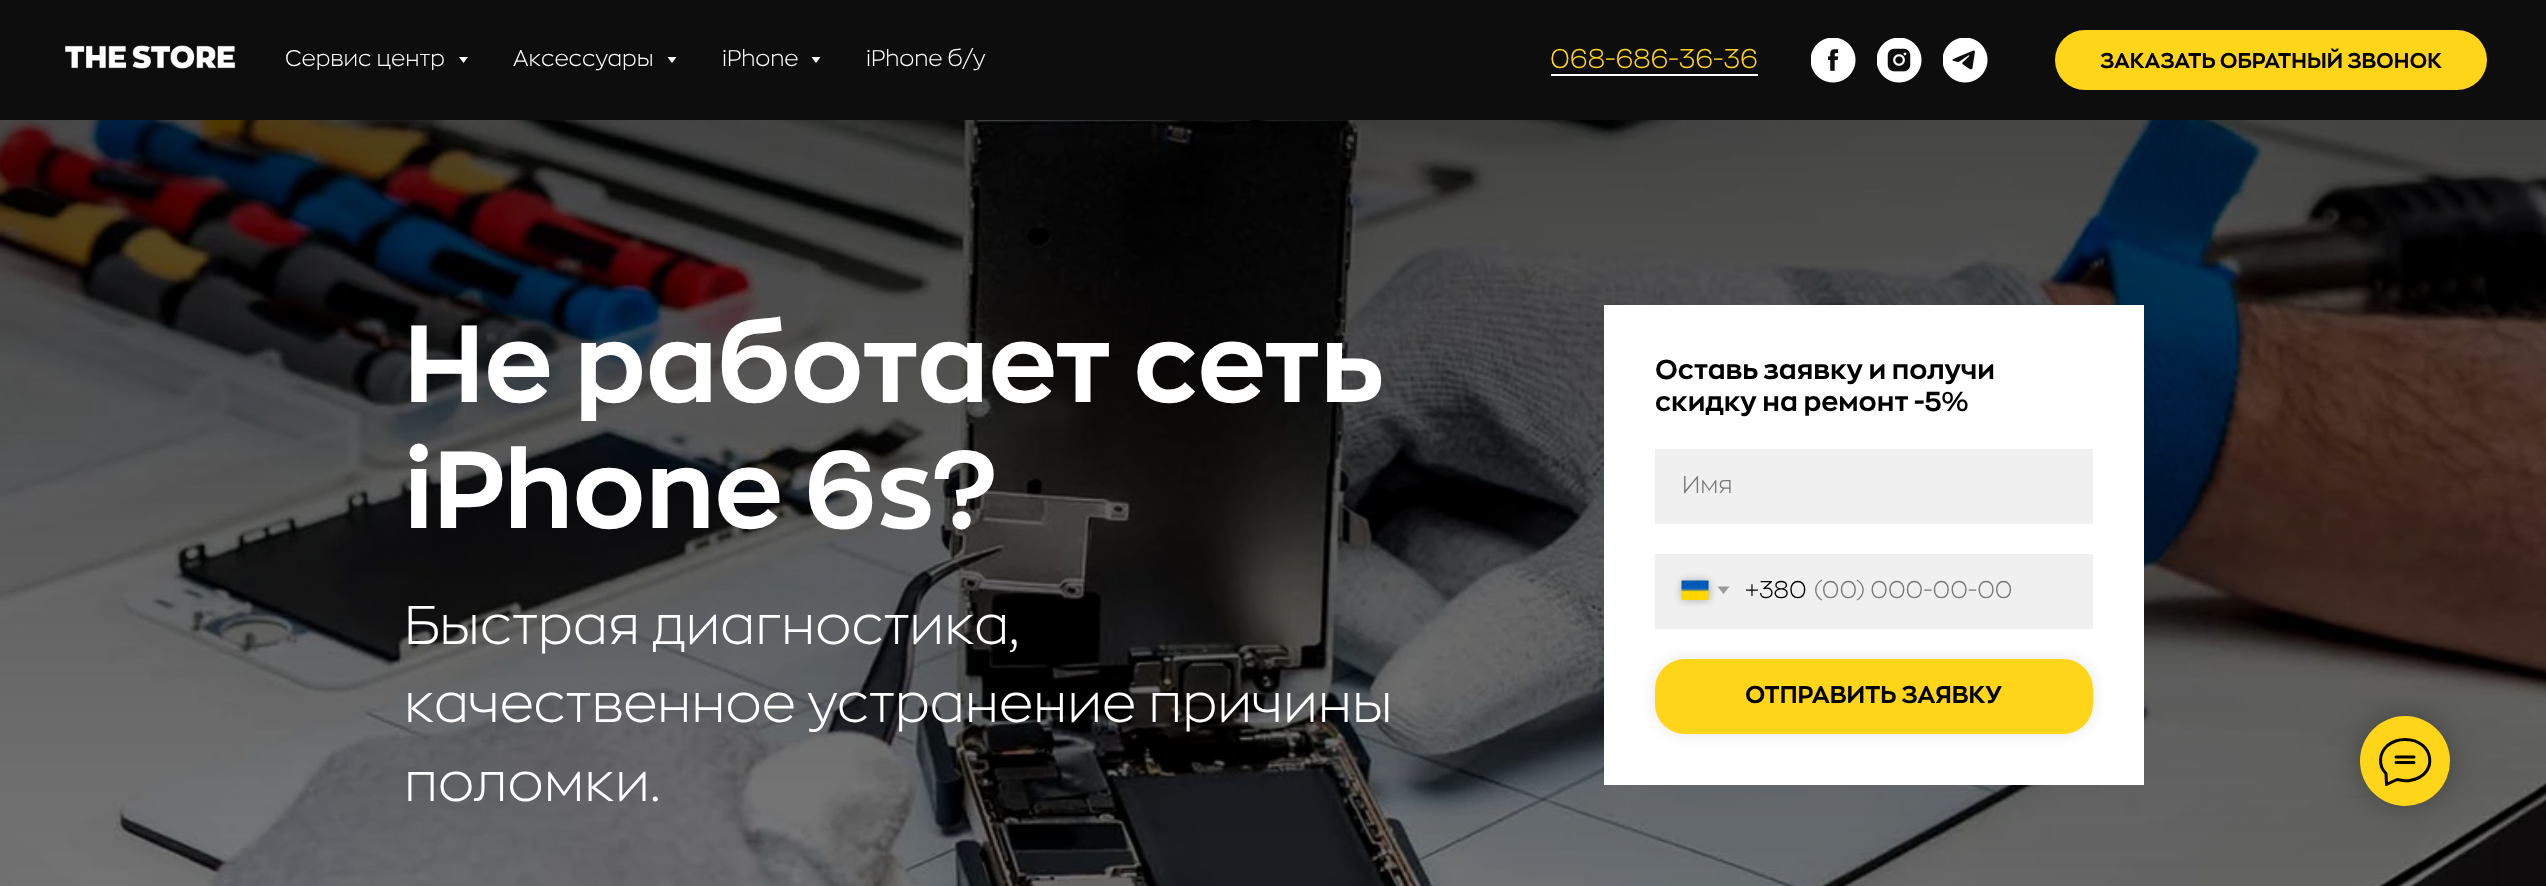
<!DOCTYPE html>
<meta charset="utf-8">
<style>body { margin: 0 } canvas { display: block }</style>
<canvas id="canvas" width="2546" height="886"></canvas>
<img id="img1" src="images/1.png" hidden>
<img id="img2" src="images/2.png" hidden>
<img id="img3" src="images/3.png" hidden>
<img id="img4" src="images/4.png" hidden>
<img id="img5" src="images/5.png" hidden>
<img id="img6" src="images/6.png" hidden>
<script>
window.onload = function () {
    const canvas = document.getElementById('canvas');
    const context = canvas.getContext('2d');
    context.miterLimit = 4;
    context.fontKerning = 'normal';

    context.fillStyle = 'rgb(13, 13, 13)';
    context.fillRect(0, 0, 2546, 886);
    context.drawImage(document.getElementById('img1'), 65, 45, 171, 24);
    context.fillStyle = 'rgb(255, 255, 255)';
    context.beginPath();
    context.moveTo(459, 57);
    context.lineTo(468, 57);
    context.lineTo(463.5, 63);
    context.closePath();
    context.fill();
    context.beginPath();
    context.moveTo(667.5, 57);
    context.lineTo(676.5, 57);
    context.lineTo(672, 63);
    context.closePath();
    context.fill();
    context.beginPath();
    context.moveTo(811.5, 57);
    context.lineTo(820.5, 57);
    context.lineTo(816, 63);
    context.closePath();
    context.fill();
    context.fillRect(1551, 74, 207, 2);
    context.drawImage(document.getElementById('img2'), 1811, 38, 45, 45);
    context.drawImage(document.getElementById('img3'), 1877, 38, 45, 45);
    context.drawImage(document.getElementById('img4'), 1943, 38, 45, 45);
    context.fillStyle = 'rgb(255, 213, 26)';
    context.beginPath();
    context.roundRect(2055, 30, 432, 60, 30);
    context.fill();
    context.drawImage(document.getElementById('img5'), 0, 120, 2546, 766);
    context.fillStyle = 'rgb(255, 255, 255)';
    context.fillRect(1604, 305, 540, 480);
    context.fillStyle = 'rgb(240, 240, 240)';
    context.fillRect(1655, 449, 438, 75);
    context.fillRect(1655, 554, 438, 75);
    context.fillStyle = 'rgba(0, 0, 0, 0.3)';
    context.filter = 'blur(4px)';
    context.beginPath();
    context.rect(1682, 581, 27, 19);
    context.fill();
    context.filter = 'none';
    context.fillStyle = 'rgb(197, 197, 197)';
    context.fillRect(1708, 581, 1, 19);
    context.drawImage(document.getElementById('img6'), 1681, 580, 28, 20);
    context.fillStyle = 'rgb(154, 154, 154)';
    context.beginPath();
    context.moveTo(1717.5, 586.5);
    context.lineTo(1729.5, 586.5);
    context.lineTo(1723.5, 594);
    context.closePath();
    context.fill();
    context.fillStyle = 'rgba(0, 0, 0, 0.1)';
    context.filter = 'blur(7.5px)';
    context.beginPath();
    context.roundRect(1655, 659, 438, 75, 30);
    context.fill();
    context.filter = 'none';
    context.fillStyle = 'rgb(255, 213, 26)';
    context.beginPath();
    context.roundRect(1655, 659, 438, 75, 30);
    context.fill();
    context.fillStyle = 'rgba(0, 0, 0, 0.3)';
    context.filter = 'blur(15px)';
    context.beginPath();
    context.roundRect(2360, 716, 90, 90, 45);
    context.fill();
    context.filter = 'none';
    context.fillStyle = 'rgb(255, 213, 26)';
    context.beginPath();
    context.arc(2405, 761, 45, 0, 2 * Math.PI);
    context.fill();
    context.beginPath();
    context.moveTo(2396, 757);
    context.lineTo(2414, 757);
    context.moveTo(2396, 762.5);
    context.lineTo(2414, 762.5);
    context.moveTo(2386, 773.5);
    context.bezierCurveTo(2378, 765.5, 2379, 753, 2387.5, 745.5);
    context.bezierCurveTo(2392.5, 741.5, 2399, 739.5, 2405, 739.5);
    context.bezierCurveTo(2434.5, 739.5, 2439.5, 775.5, 2410, 780.5);
    context.bezierCurveTo(2405, 781.5, 2402, 780, 2397, 779.5);
    context.lineTo(2386.5, 784.5);
    context.closePath();
    context.strokeStyle = 'rgb(0, 0, 0)';
    context.lineWidth = 3;
    context.lineCap = 'round';
    context.lineJoin = 'round';
    context.stroke();
    context.font = '300 22.5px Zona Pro';
    context.fillStyle = 'rgb(255, 255, 255)';
    context.fillText('Сервис центр', 285, 66);
    context.fillText('Аксессуары', 513, 66);
    context.fillText('iPhone', 722, 66);
    context.fillText('iPhone б/у', 866, 66);
    context.font = '300 27px Zona Pro';
    context.fillStyle = 'rgb(255, 213, 26)';
    context.fillText('068-686-36-36', 1550, 68);
    context.font = 'bold 21px Zona Pro';
    context.fillStyle = 'rgb(0, 0, 0)';
    context.fillText('ЗАКАЗАТЬ ОБРАТНЫЙ ЗВОНОК', 2100, 68);
    context.font = 'bold 108px Zona Pro';
    context.fillStyle = 'rgb(255, 255, 255)';
    context.fillText('Не работает сеть', 404, 402);
    context.fillText('iPhone 6s?', 404, 528);
    context.font = '300 54px Zona Pro';
    context.fillText('Быстрая диагностика,', 404, 644);
    context.fillText('качественное устранение причины', 404, 722);
    context.fillText('поломки.', 404, 801);
    context.font = 'bold 27px Zona Pro';
    context.fillStyle = 'rgb(0, 0, 0)';
    context.fillText('Оставь заявку и получи', 1655, 379);
    context.fillText('скидку на ремонт -5%', 1655, 411);
    context.font = '300 24px Zona Pro';
    context.fillStyle = 'rgb(120, 120, 120)';
    context.fillText('Имя', 1682, 493);
    context.fillStyle = 'rgb(0, 0, 0)';
    context.fillText('+380', 1745, 598);
    context.fillStyle = 'rgb(120, 120, 120)';
    context.fillText('(00) 000-00-00', 1814, 598);
    context.font = 'bold 24px Zona Pro';
    context.fillStyle = 'rgb(0, 0, 0)';
    context.fillText('ОТПРАВИТЬ ЗАЯВКУ', 1745, 703);
};
</script>
